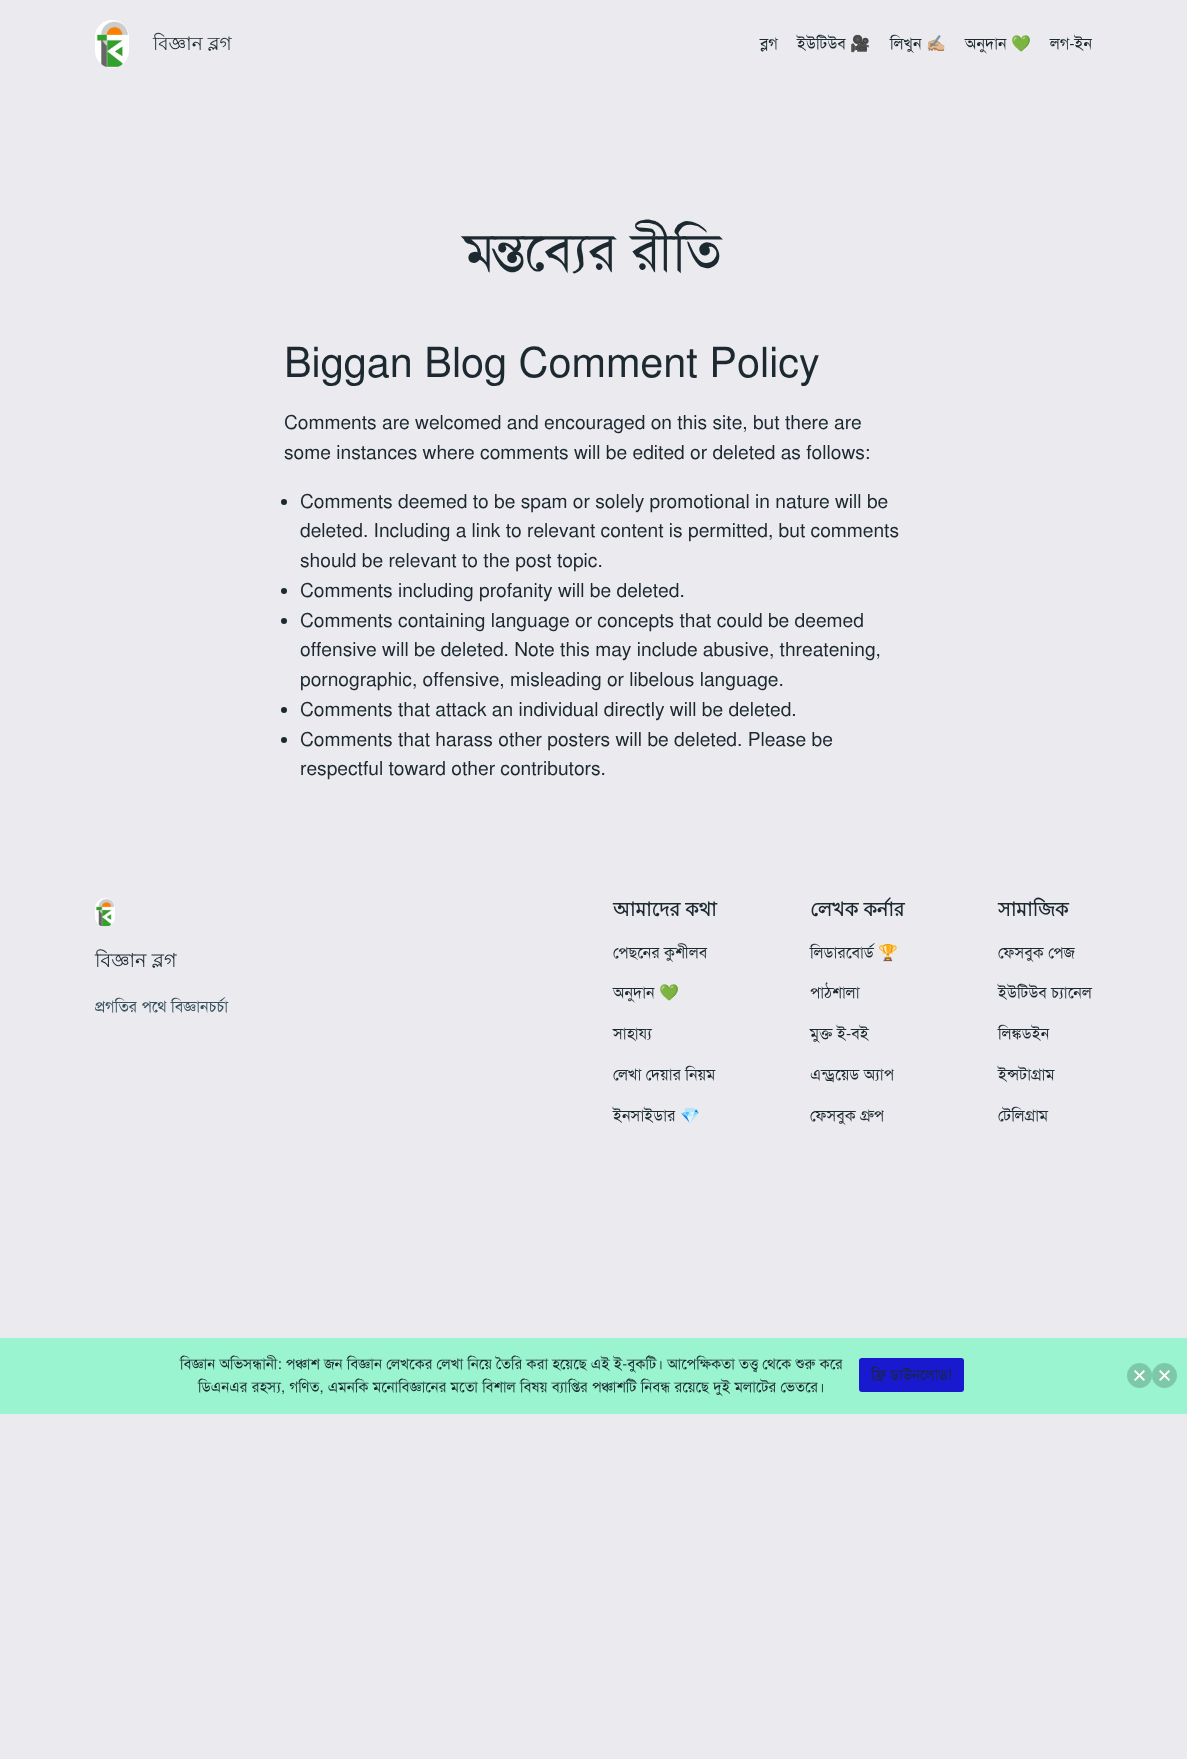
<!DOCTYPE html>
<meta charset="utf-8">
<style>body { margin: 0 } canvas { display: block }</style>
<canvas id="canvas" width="1187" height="1759"></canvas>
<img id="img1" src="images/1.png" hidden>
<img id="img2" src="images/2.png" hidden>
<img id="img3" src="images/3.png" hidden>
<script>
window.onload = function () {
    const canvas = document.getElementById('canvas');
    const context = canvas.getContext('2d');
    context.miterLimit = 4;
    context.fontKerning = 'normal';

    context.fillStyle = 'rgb(235, 235, 239)';
    context.fillRect(0, 0, 1187, 1759);
    context.drawImage(document.getElementById('img1'), 95, 20, 34, 48);
    context.fillStyle = 'rgb(28, 41, 48)';
    context.beginPath();
    context.arc(284, 502, 3, 0, 2 * Math.PI);
    context.fill();
    context.beginPath();
    context.arc(284, 591, 3, 0, 2 * Math.PI);
    context.fill();
    context.beginPath();
    context.arc(284, 621, 3, 0, 2 * Math.PI);
    context.fill();
    context.beginPath();
    context.arc(284, 710, 3, 0, 2 * Math.PI);
    context.fill();
    context.beginPath();
    context.arc(284, 740, 3, 0, 2 * Math.PI);
    context.fill();
    context.drawImage(document.getElementById('img2'), 95, 898, 20, 29);
    context.fillStyle = 'rgb(154, 244, 207)';
    context.fillRect(0, 1338, 1187, 76);
    context.fillStyle = 'rgb(25, 25, 207)';
    context.beginPath();
    context.roundRect(859, 1358, 105, 34, 3);
    context.fill();
    context.fillStyle = 'rgb(126, 200, 170)';
    context.beginPath();
    context.arc(1139.5, 1375.5, 12.5, 0, 2 * Math.PI);
    context.fill();
    context.drawImage(document.getElementById('img3'), 1134, 1370, 11, 11);
    context.beginPath();
    context.arc(1164.5, 1375.5, 12.5, 0, 2 * Math.PI);
    context.fill();
    context.drawImage(document.getElementById('img3'), 1159, 1370, 11, 11);
    context.font = '18.5px Lohit Bengali';
    context.fillStyle = 'rgb(28, 41, 48)';
    context.fillText('বিজ্ঞান ব্লগ', 153, 50);
    context.font = '16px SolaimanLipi';
    context.fillText('ব্লগ', 760, 49);
    context.fillText('ইউটিউব', 797, 49);
    context.font = '16px Noto Color Emoji';
    context.fillText('🎥', 850, 49);
    context.font = '16px SolaimanLipi';
    context.fillText('লিখুন', 890, 49);
    context.font = '16px Noto Color Emoji';
    context.fillText('✍🏼', 926, 49);
    context.font = '16px SolaimanLipi';
    context.fillText('অনুদান', 965, 49);
    context.font = '16px Noto Color Emoji';
    context.fillText('💚', 1011, 49);
    context.font = '16px SolaimanLipi';
    context.fillText('লগ-ইন', 1050, 49);
    context.font = '54.5px SolaimanLipi';
    context.fillText('মন্তব্যের রীতি', 464, 270);
    context.font = '41.4px SolaimanLipi';
    context.fillText('Biggan Blog Comment Policy', 284, 377);
    context.font = '19.2px SolaimanLipi';
    context.fillText('Comments are welcomed and encouraged on this site, but there are', 284, 429);
    context.fillText('some instances where comments will be edited or deleted as follows:', 284, 459);
    context.fillText('Comments deemed to be spam or solely promotional in nature will be', 300, 508);
    context.fillText('deleted. Including a link to relevant content is permitted, but comments', 300, 537);
    context.fillText('should be relevant to the post topic.', 300, 567);
    context.fillText('Comments including profanity will be deleted.', 300, 597);
    context.fillText('Comments containing language or concepts that could be deemed', 300, 627);
    context.fillText('offensive will be deleted. Note this may include abusive, threatening,', 300, 656);
    context.fillText('pornographic, offensive, misleading or libelous language.', 300, 686);
    context.fillText('Comments that attack an individual directly will be deleted.', 300, 716);
    context.fillText('Comments that harass other posters will be deleted. Please be', 300, 746);
    context.fillText('respectful toward other contributors.', 300, 775);
    context.font = '19.2px Lohit Bengali';
    context.fillText('বিজ্ঞান ব্লগ', 95, 967);
    context.font = '16px SolaimanLipi';
    context.fillStyle = 'rgb(55, 80, 93)';
    context.fillText('প্রগতির পথে বিজ্ঞানচর্চা', 95, 1012);
    context.font = 'bold 19.2px Lohit Bengali';
    context.fillStyle = 'rgb(28, 41, 48)';
    context.fillText('আমাদের কথা', 613, 916);
    context.font = '16px SolaimanLipi';
    context.fillText('পেছনের কুশীলব', 613, 958);
    context.fillText('অনুদান', 613, 998);
    context.font = '16px Noto Color Emoji';
    context.fillText('💚', 659, 998);
    context.font = '16px SolaimanLipi';
    context.fillText('সাহায্য', 613, 1039);
    context.fillText('লেখা দেয়ার নিয়ম', 613, 1080);
    context.fillText('ইনসাইডার', 613, 1121);
    context.font = '16px Noto Color Emoji';
    context.fillText('💎', 680, 1121);
    context.font = 'bold 19.2px Lohit Bengali';
    context.fillText('লেখক কর্নার', 810, 916);
    context.font = '16px SolaimanLipi';
    context.fillText('লিডারবোর্ড', 810, 958);
    context.font = '16px Noto Color Emoji';
    context.fillText('🏆', 878, 958);
    context.font = '16px SolaimanLipi';
    context.fillText('পাঠশালা', 810, 998);
    context.fillText('মুক্ত ই-বই', 810, 1039);
    context.fillText('এন্ড্রয়েড অ্যাপ', 810, 1080);
    context.fillText('ফেসবুক গ্রুপ', 810, 1121);
    context.font = 'bold 19.2px Lohit Bengali';
    context.fillText('সামাজিক', 998, 916);
    context.font = '16px SolaimanLipi';
    context.fillText('ফেসবুক পেজ', 998, 958);
    context.fillText('ইউটিউব চ্যানেল', 998, 998);
    context.fillText('লিঙ্কডইন', 998, 1039);
    context.fillText('ইন্সটাগ্রাম', 998, 1080);
    context.fillText('টেলিগ্রাম', 998, 1121);
    context.font = '15px SolaimanLipi';
    context.fillText('বিজ্ঞান অভিসন্ধানী: পঞ্চাশ জন বিজ্ঞান লেখকের লেখা নিয়ে তৈরি করা হয়েছে এই ই-বুকটি। আপেক্ষিকতা তত্ত্ব থেকে শুরু করে', 180, 1369);
    context.fillText('ডিএনএর রহস্য, গণিত, এমনকি মনোবিজ্ঞানের মতো বিশাল বিষয় ব্যাপ্তির পঞ্চাশটি নিবন্ধ রয়েছে দুই মলাটের ভেতরে।', 198, 1392);
    context.fillText('ফ্রি ডাউনলোড!', 871, 1380);
};
</script>
